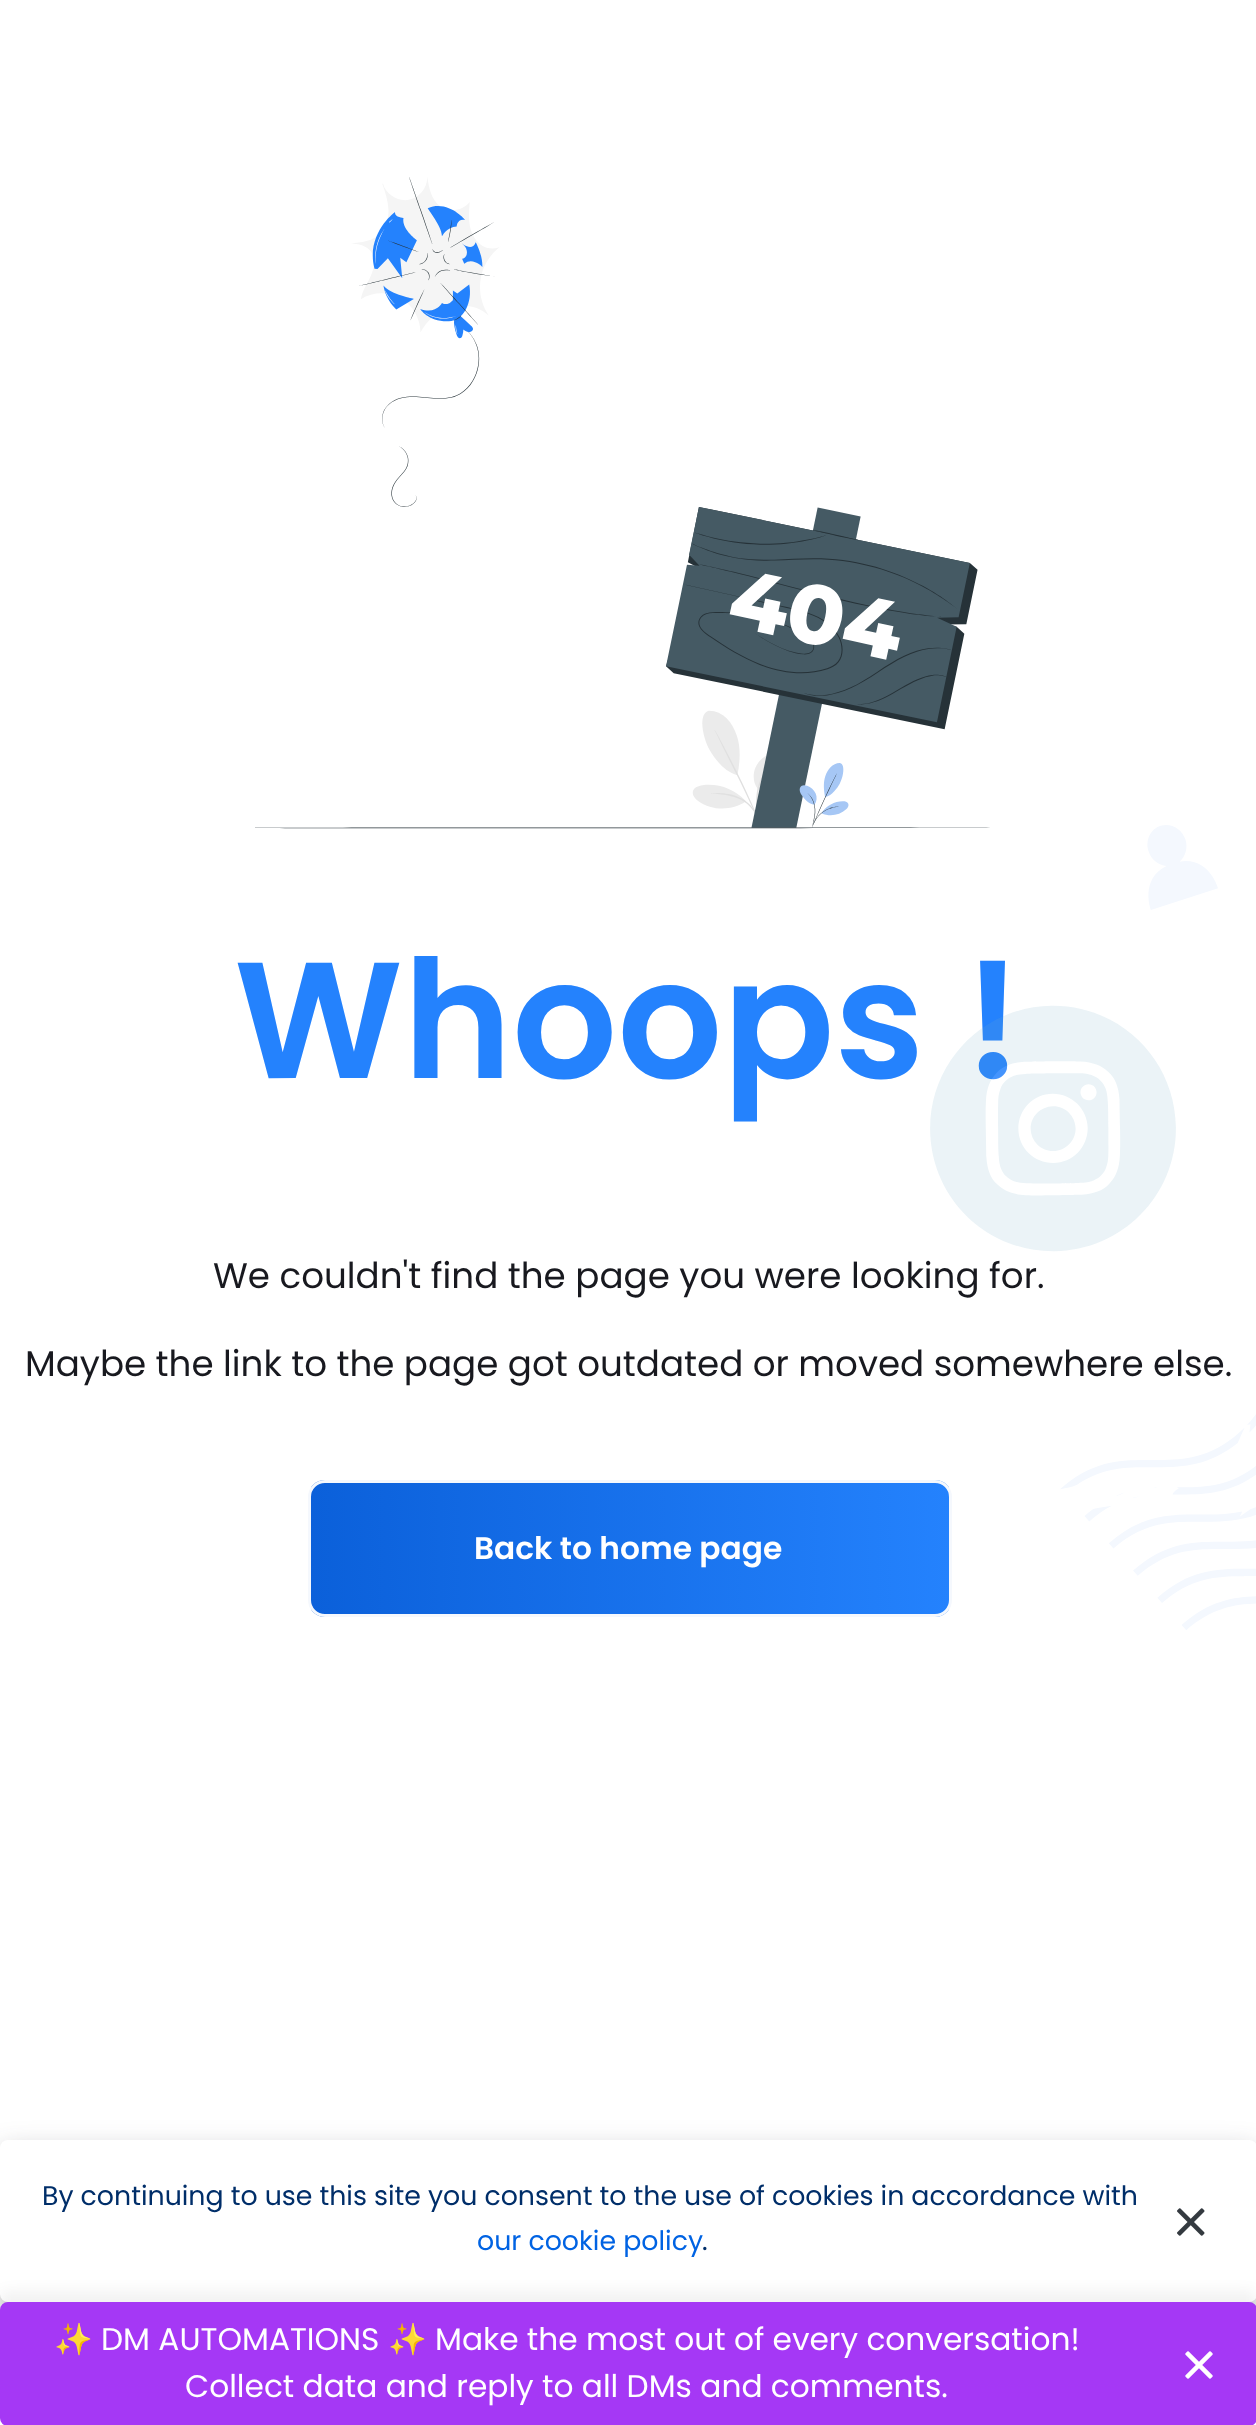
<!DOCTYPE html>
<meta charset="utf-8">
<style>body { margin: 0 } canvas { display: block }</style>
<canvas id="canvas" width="1256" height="2425"></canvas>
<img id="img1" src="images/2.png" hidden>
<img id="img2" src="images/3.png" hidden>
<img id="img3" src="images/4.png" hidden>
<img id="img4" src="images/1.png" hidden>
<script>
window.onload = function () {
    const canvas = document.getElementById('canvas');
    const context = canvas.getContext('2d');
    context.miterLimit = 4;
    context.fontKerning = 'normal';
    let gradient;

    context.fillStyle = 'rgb(255, 255, 255)';
    context.fillRect(0, 0, 1256, 2425);
    context.drawImage(document.getElementById('img1'), 255, 177, 735, 652);
    context.save();
    context.beginPath();
    context.roundRect(308, 1480, 644, 137, 17);
    context.clip();
    gradient = context.createLinearGradient(311, 1548, 949, 1548);
    gradient.addColorStop(0, 'rgb(11, 96, 218)');
    gradient.addColorStop(1, 'rgb(36, 130, 253)');
    context.fillStyle = gradient;
    context.fillRect(311, 1480, 638, 137);
    context.restore();
    context.beginPath();
    context.roundRect(309.5, 1481.5, 641, 134, 15.5);
    context.strokeStyle = 'rgb(245, 248, 253)';
    context.lineWidth = 3;
    context.stroke();
    context.fillStyle = 'rgba(39, 40, 49, 0.3)';
    context.filter = 'blur(14px)';
    context.beginPath();
    context.roundRect(0, 2151, 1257, 162, 8);
    context.fill();
    context.filter = 'none';
    context.fillStyle = 'rgb(255, 255, 255)';
    context.beginPath();
    context.roundRect(0, 2140, 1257, 162, 8);
    context.fill();
    context.drawImage(document.getElementById('img2'), 1177, 2208, 28, 28);
    context.fillStyle = 'rgba(0, 0, 0, 0.05)';
    context.filter = 'blur(6.5px)';
    context.beginPath();
    context.roundRect(0, 2291, 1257, 124, 8);
    context.fill();
    context.filter = 'none';
    context.fillStyle = 'rgb(165, 56, 245)';
    context.beginPath();
    context.roundRect(0, 2302, 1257, 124, 8);
    context.fill();
    context.drawImage(document.getElementById('img3'), 1185, 2351, 28, 28);
    context.font = '600 165px Poppins';
    context.fillStyle = 'rgb(36, 130, 253)';
    context.fillText('Whoops !', 234, 1078);
    context.font = '35.7px Poppins';
    context.fillStyle = 'rgb(24, 25, 31)';
    context.fillText('We couldn\'t find the page you were looking for.', 213, 1288);
    context.wordSpacing = '-0.1px';
    context.fillText('Maybe the link to the page got outdated or moved somewhere else.', 25, 1376);
    context.drawImage(document.getElementById('img4'), 930, 825, 326, 805);
    context.wordSpacing = '0px';
    context.font = '600 31.25px Poppins';
    context.fillStyle = 'rgb(255, 255, 255)';
    context.fillText('Back to home page', 474, 1559);
    context.wordSpacing = '-0.1px';
    context.font = '26.8px Poppins';
    context.fillStyle = 'rgb(0, 46, 105)';
    context.fillText('By continuing to use this site you consent to the use of cookies in accordance with', 42, 2205);
    context.wordSpacing = '0px';
    context.fillStyle = 'rgb(0, 99, 227)';
    context.fillText('our cookie policy', 477, 2250);
    context.fillStyle = 'rgb(0, 46, 105)';
    context.fillText('.', 702, 2250);
    context.font = '31.25px Noto Color Emoji';
    context.fillStyle = 'rgb(255, 255, 255)';
    context.fillText('✨', 54, 2350);
    context.font = '31.25px Poppins';
    context.fillText('DM AUTOMATIONS', 101, 2350);
    context.font = '31.25px Noto Color Emoji';
    context.fillText('✨', 388, 2350);
    context.font = '31.25px Poppins';
    context.fillText('Make the most out of every conversation!', 435, 2350);
    context.fillText('Collect data and reply to all DMs and comments.', 185, 2397);
};
</script>
